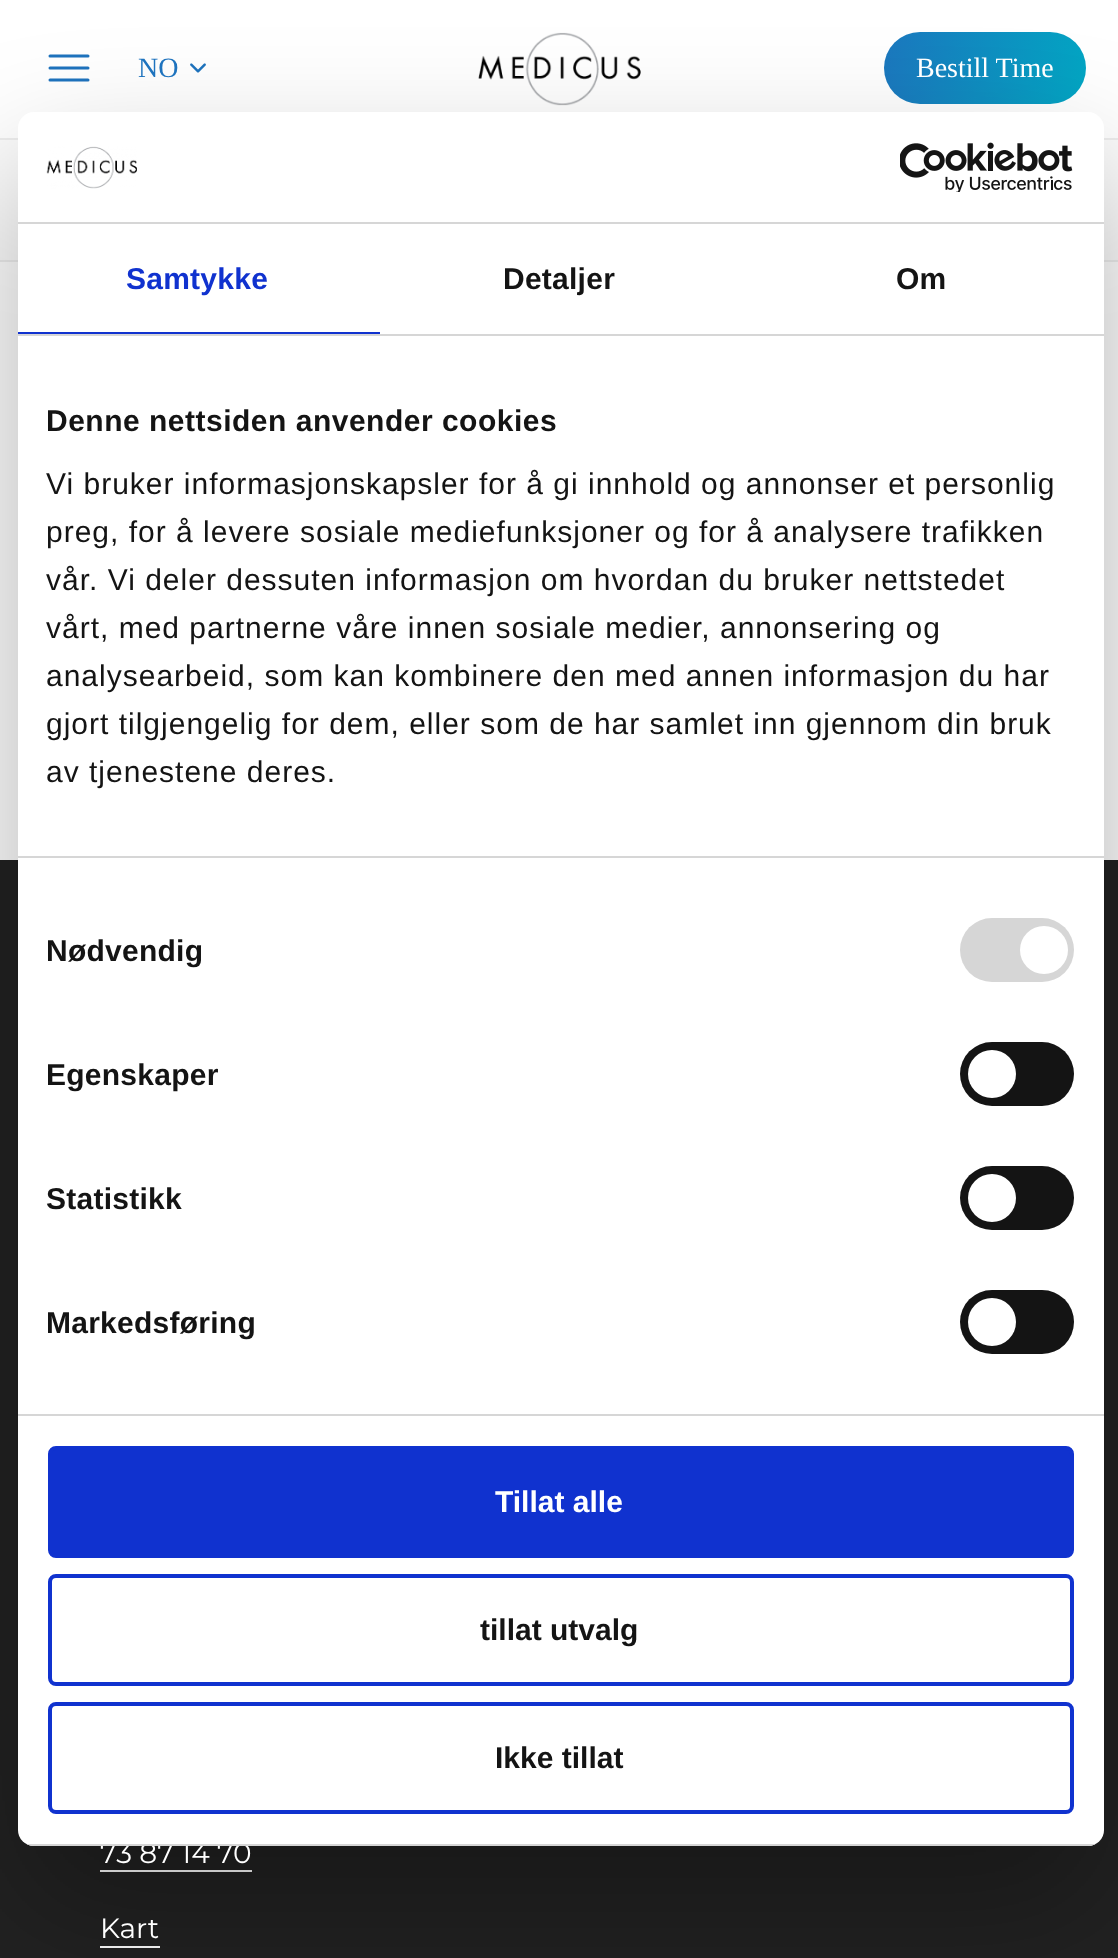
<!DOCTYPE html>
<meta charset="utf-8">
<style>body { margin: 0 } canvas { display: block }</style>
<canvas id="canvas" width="1118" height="1958"></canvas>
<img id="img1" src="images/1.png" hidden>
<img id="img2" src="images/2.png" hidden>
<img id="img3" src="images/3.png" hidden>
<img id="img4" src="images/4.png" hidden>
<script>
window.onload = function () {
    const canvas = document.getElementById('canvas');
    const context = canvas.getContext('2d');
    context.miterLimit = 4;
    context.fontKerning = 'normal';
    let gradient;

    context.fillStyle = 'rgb(255, 255, 255)';
    context.fillRect(0, 0, 1118, 1958);
    context.beginPath();
    context.moveTo(50, 68);
    context.lineTo(88, 68);
    context.moveTo(50, 56);
    context.lineTo(88, 56);
    context.moveTo(50, 80);
    context.lineTo(88, 80);
    context.strokeStyle = 'rgb(30, 115, 190)';
    context.lineWidth = 3;
    context.lineCap = 'round';
    context.lineJoin = 'round';
    context.stroke();
    context.drawImage(document.getElementById('img1'), 190, 63, 16, 10);
    context.drawImage(document.getElementById('img2'), 478, 32, 163, 74);
    gradient = context.createLinearGradient(861, 53, 1110, 83);
    gradient.addColorStop(0, 'rgb(30, 115, 190)');
    gradient.addColorStop(1, 'rgb(0, 171, 196)');
    context.fillStyle = gradient;
    context.beginPath();
    context.roundRect(884, 32, 202, 72, 36);
    context.fill();
    context.fillStyle = 'rgb(252, 252, 252)';
    context.fillRect(0, 140, 1118, 120);
    context.fillStyle = 'rgb(238, 238, 238)';
    context.fillRect(0, 138, 1118, 2);
    context.fillRect(0, 260, 1118, 2);
    context.fillStyle = 'rgb(34, 34, 34)';
    context.fillRect(0, 860, 1118, 1098);
    context.fillStyle = 'rgb(255, 255, 255)';
    context.fillRect(100, 1870, 152, 2);
    context.fillRect(100, 1946, 60, 2);
    context.fillStyle = 'rgba(0, 0, 0, 0.3)';
    context.filter = 'blur(68px)';
    context.beginPath();
    context.roundRect(18, 176, 1086, 1734, 16);
    context.fill();
    context.filter = 'none';
    context.fillStyle = 'rgb(255, 255, 255)';
    context.beginPath();
    context.roundRect(18, 112, 1086, 1734, 16);
    context.fill();
    context.fillStyle = 'rgb(214, 214, 214)';
    context.fillRect(18, 222, 1086, 2);
    context.drawImage(document.getElementById('img3'), 46, 146, 91, 43);
    context.drawImage(document.getElementById('img4'), 900, 142, 173, 50);
    context.fillRect(18, 334, 1086, 2);
    context.fillStyle = 'rgb(16, 50, 207)';
    context.fillRect(18, 332, 362, 2);
    context.fillStyle = 'rgb(214, 214, 214)';
    context.fillRect(18, 856, 1086, 2);
    context.fillRect(18, 1414, 1086, 2);
    context.beginPath();
    context.roundRect(960, 918, 114, 64, 32);
    context.fill();
    context.fillStyle = 'rgb(255, 255, 255)';
    context.beginPath();
    context.arc(1044, 950, 24, 0, 2 * Math.PI);
    context.fill();
    context.fillStyle = 'rgb(20, 20, 20)';
    context.beginPath();
    context.roundRect(960, 1042, 114, 64, 32);
    context.fill();
    context.fillStyle = 'rgb(255, 255, 255)';
    context.beginPath();
    context.arc(992, 1074, 24, 0, 2 * Math.PI);
    context.fill();
    context.fillStyle = 'rgb(20, 20, 20)';
    context.beginPath();
    context.roundRect(960, 1166, 114, 64, 32);
    context.fill();
    context.fillStyle = 'rgb(255, 255, 255)';
    context.beginPath();
    context.arc(992, 1198, 24, 0, 2 * Math.PI);
    context.fill();
    context.fillStyle = 'rgb(20, 20, 20)';
    context.beginPath();
    context.roundRect(960, 1290, 114, 64, 32);
    context.fill();
    context.fillStyle = 'rgb(255, 255, 255)';
    context.beginPath();
    context.arc(992, 1322, 24, 0, 2 * Math.PI);
    context.fill();
    context.fillStyle = 'rgb(16, 50, 207)';
    context.beginPath();
    context.roundRect(50, 1448, 1022, 108, 6);
    context.fill();
    context.strokeStyle = 'rgb(16, 50, 207)';
    context.lineWidth = 4;
    context.lineJoin = 'miter';
    context.stroke();
    context.beginPath();
    context.roundRect(50, 1576, 1022, 108, 6);
    context.stroke();
    context.beginPath();
    context.roundRect(50, 1704, 1022, 108, 6);
    context.stroke();
    context.font = '28px Liberation Serif';
    context.fillStyle = 'rgb(30, 115, 190)';
    context.fillText('NO', 138, 77);
    context.fillStyle = 'rgb(255, 255, 255)';
    context.fillText('Bestill Time', 916, 77);
    context.letterSpacing = '0.25px';
    context.font = 'bold 30px Liberation Sans';
    context.fillStyle = 'rgb(16, 50, 207)';
    context.fillText('Samtykke', 126, 289);
    context.fillStyle = 'rgb(20, 20, 20)';
    context.fillText('Detaljer', 503, 289);
    context.fillText('Om', 896, 289);
    context.letterSpacing = '0.5px';
    context.fillText('Denne nettsiden anvender cookies', 46, 431);
    context.letterSpacing = '1px';
    context.font = '30px Liberation Sans';
    context.fillText('Vi bruker informasjonskapsler for å gi innhold og annonser et personlig', 46, 494);
    context.fillText('preg, for å levere sosiale mediefunksjoner og for å analysere trafikken', 46, 542);
    context.fillText('vår. Vi deler dessuten informasjon om hvordan du bruker nettstedet', 46, 590);
    context.fillText('vårt, med partnerne våre innen sosiale medier, annonsering og', 46, 638);
    context.fillText('analysearbeid, som kan kombinere den med annen informasjon du har', 46, 686);
    context.fillText('gjort tilgjengelig for dem, eller som de har samlet inn gjennom din bruk', 46, 734);
    context.fillText('av tjenestene deres.', 46, 782);
    context.letterSpacing = '0.25px';
    context.font = 'bold 30px Liberation Sans';
    context.fillText('Nødvendig', 46, 961);
    context.fillText('Egenskaper', 46, 1085);
    context.fillText('Statistikk', 46, 1209);
    context.fillText('Markedsføring', 46, 1333);
    context.letterSpacing = '0px';
    context.fillStyle = 'rgb(255, 255, 255)';
    context.fillText('Tillat alle', 495, 1512);
    context.fillStyle = 'rgb(20, 20, 20)';
    context.fillText('tillat utvalg', 480, 1640);
    context.fillText('Ikke tillat', 495, 1768);
    context.font = '28px Montserrat';
    context.fillStyle = 'rgb(255, 255, 255)';
    context.fillText('73 87 14 70', 100, 1863);
    context.save();
    context.beginPath();
    context.roundRect(18, 112, 1086, 1734, 16);
    context.clip();
    context.fillStyle = 'rgb(214, 214, 214)';
    context.fillRect(18, 1844, 1086, 2);
    context.restore();
    context.fillText('Kart', 100, 1938);
};
</script>
